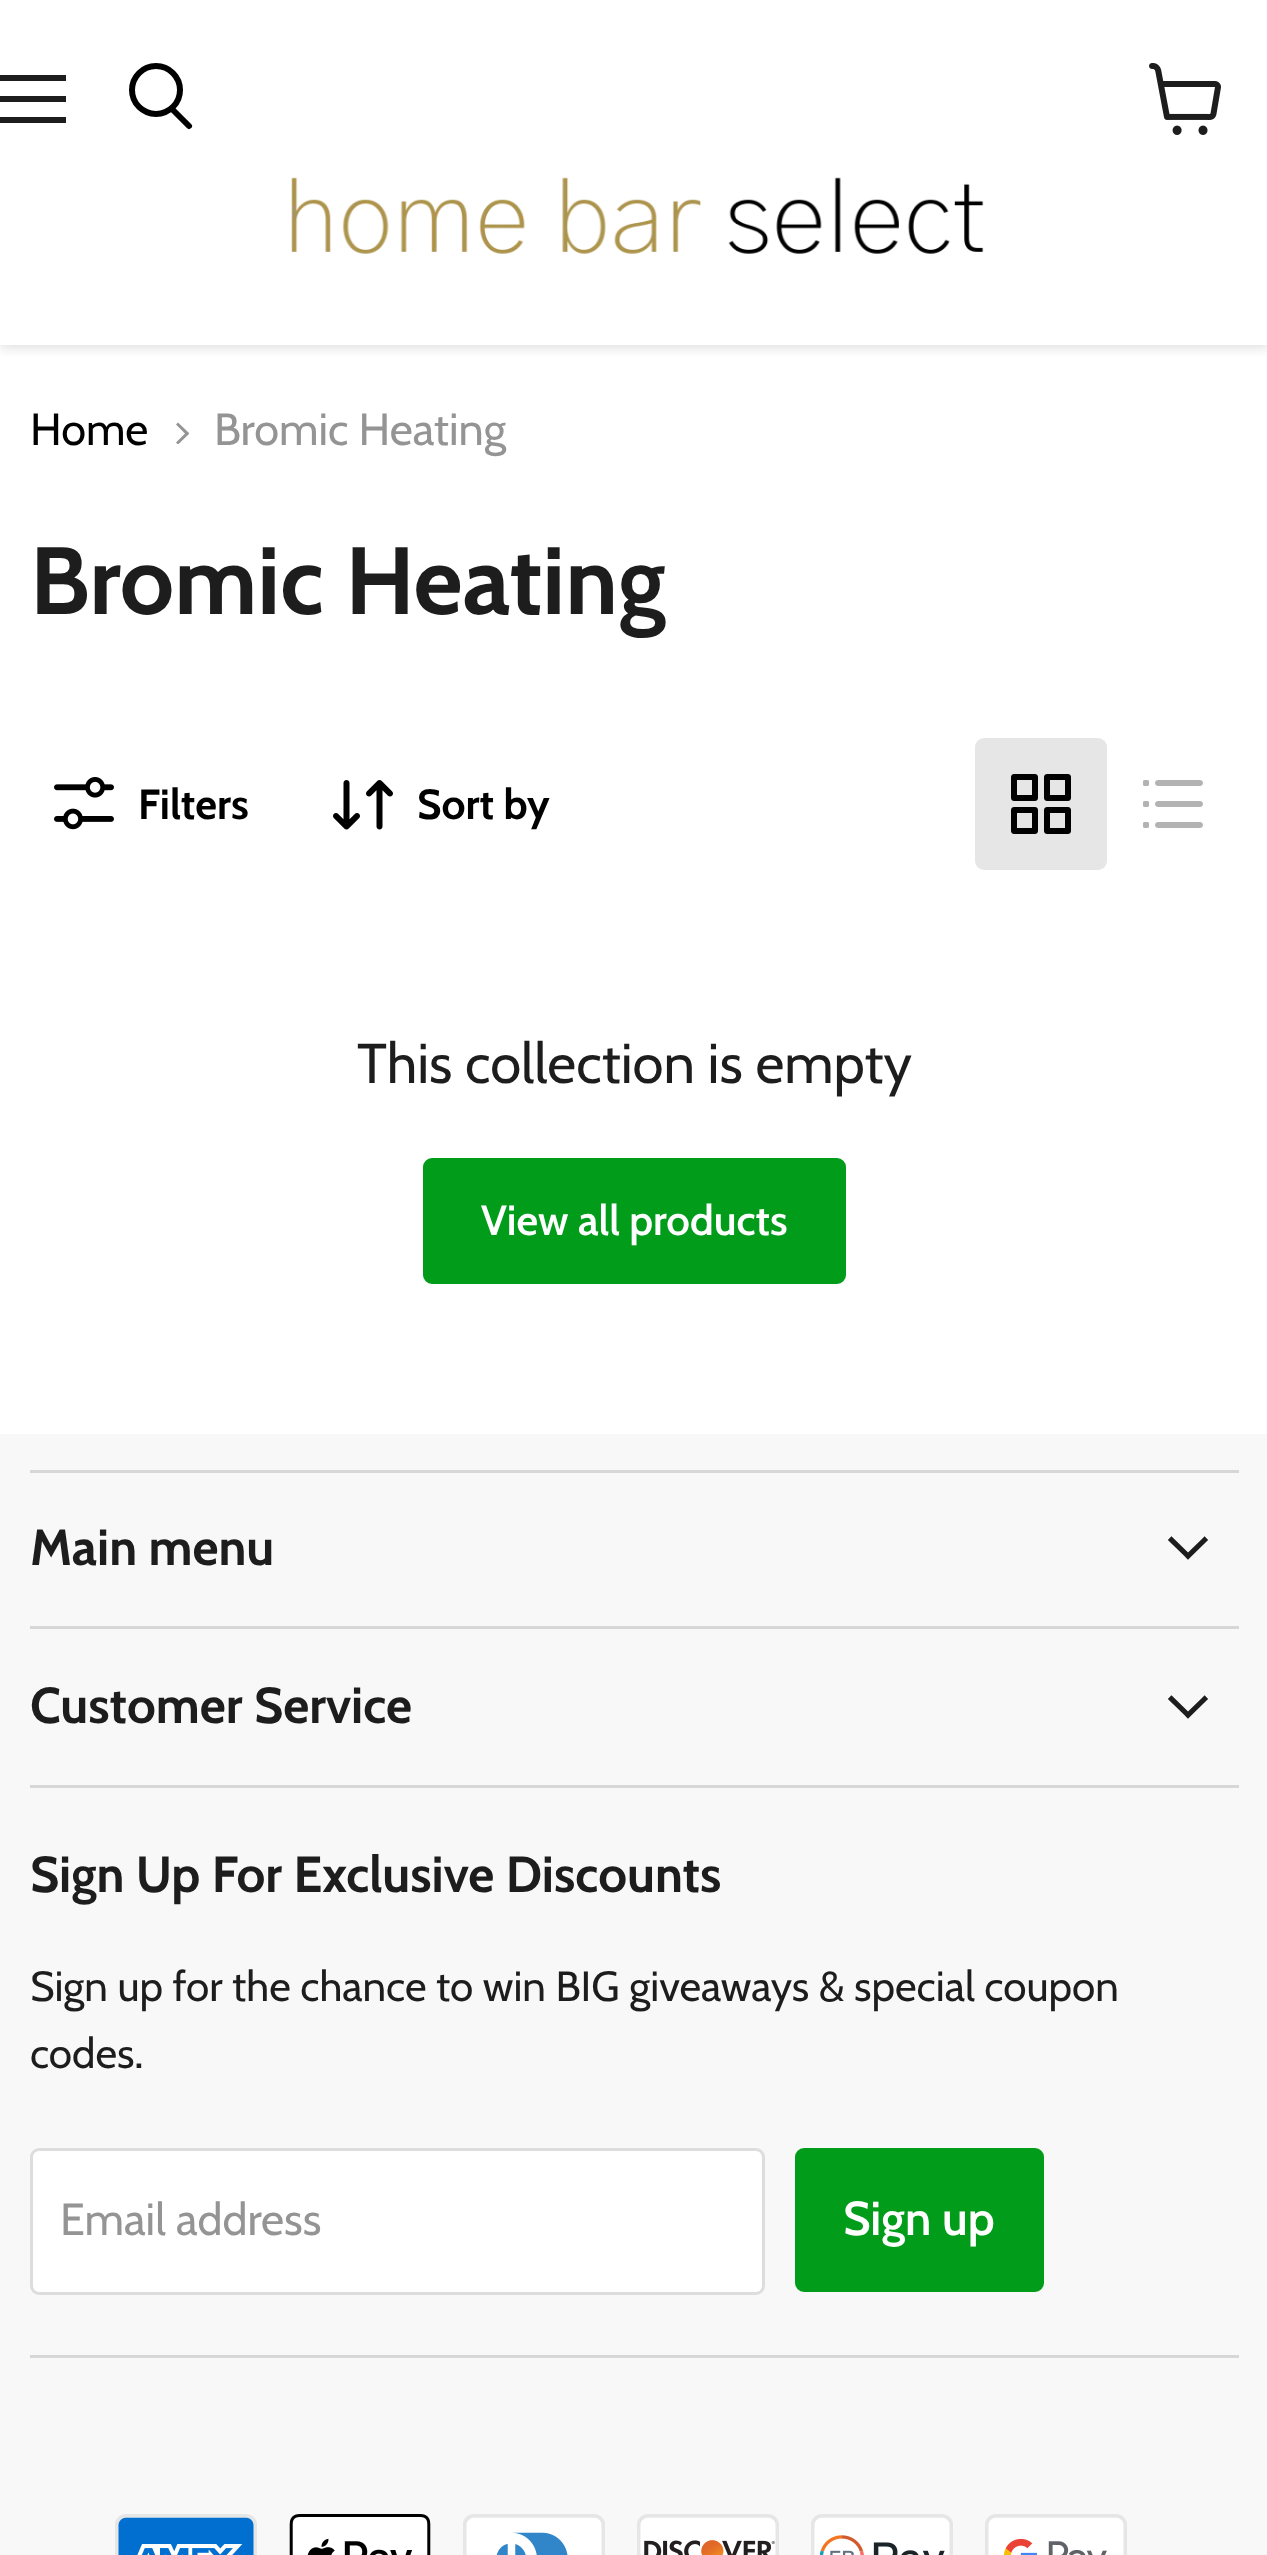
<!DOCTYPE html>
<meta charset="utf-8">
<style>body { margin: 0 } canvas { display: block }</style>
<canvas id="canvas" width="1267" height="2555"></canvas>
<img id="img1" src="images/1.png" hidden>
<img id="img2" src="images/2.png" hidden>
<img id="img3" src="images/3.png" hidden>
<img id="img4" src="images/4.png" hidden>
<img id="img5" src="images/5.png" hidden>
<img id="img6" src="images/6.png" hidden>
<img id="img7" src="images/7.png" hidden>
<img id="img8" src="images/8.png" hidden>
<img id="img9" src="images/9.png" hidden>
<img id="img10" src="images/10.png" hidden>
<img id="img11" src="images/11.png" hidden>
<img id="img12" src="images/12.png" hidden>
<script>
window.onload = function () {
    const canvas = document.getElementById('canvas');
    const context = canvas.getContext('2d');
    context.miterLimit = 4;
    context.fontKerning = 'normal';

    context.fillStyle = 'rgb(255, 255, 255)';
    context.fillRect(0, 0, 1267, 2555);
    context.save();
    context.beginPath();
    context.rect(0, 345, 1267, 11);
    context.clip();
    context.fillStyle = 'rgba(128, 128, 128, 0.25)';
    context.filter = 'blur(6px)';
    context.beginPath();
    context.rect(0, 3, 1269, 345);
    context.fill();
    context.filter = 'none';
    context.restore();
    context.fillStyle = 'rgb(29, 29, 29)';
    context.fillRect(0, 75, 66, 6);
    context.fillRect(0, 96, 66, 6);
    context.fillRect(0, 117, 66, 6);
    context.beginPath();
    context.moveTo(189, 126);
    context.lineTo(172.5, 109.5);
    context.strokeStyle = 'rgb(0, 0, 0)';
    context.lineWidth = 6;
    context.lineCap = 'round';
    context.stroke();
    context.beginPath();
    context.arc(156, 90, 24, 0, 2 * Math.PI);
    context.stroke();
    context.drawImage(document.getElementById('img1'), 1149, 63, 72, 72);
    context.drawImage(document.getElementById('img2'), 291, 177, 693, 77);
    context.fillStyle = 'rgb(148, 148, 148)';
    context.beginPath();
    context.moveTo(176, 442.5);
    context.lineTo(185, 433.5);
    context.lineTo(176, 424.5);
    context.lineTo(178, 422.5);
    context.lineTo(189, 433);
    context.lineTo(189, 434);
    context.lineTo(178.5, 444);
    context.lineTo(177.5, 444);
    context.closePath();
    context.fill();
    context.drawImage(document.getElementById('img3'), 54, 777, 60, 53);
    context.drawImage(document.getElementById('img4'), 333, 780, 60, 50);
    context.fillStyle = 'rgb(230, 230, 230)';
    context.beginPath();
    context.roundRect(975, 738, 132, 132, 9);
    context.fill();
    context.drawImage(document.getElementById('img5'), 1011, 774, 60, 60);
    context.drawImage(document.getElementById('img6'), 1143, 780, 60, 48);
    context.fillStyle = 'rgb(0, 156, 26)';
    context.beginPath();
    context.roundRect(424.5, 1159.5, 420, 123, 7.5);
    context.fill();
    context.strokeStyle = 'rgb(0, 156, 26)';
    context.lineWidth = 3;
    context.stroke();
    context.fillStyle = 'rgb(248, 248, 248)';
    context.fillRect(0, 1434, 1267, 1121);
    context.fillStyle = 'rgb(215, 215, 215)';
    context.fillRect(30, 1470, 1209, 3);
    context.fillRect(30, 1626, 1209, 3);
    context.beginPath();
    context.moveTo(1188, 1556);
    context.lineTo(1204.5, 1540);
    context.moveTo(1188, 1556);
    context.lineTo(1171.5, 1540);
    context.strokeStyle = 'rgb(29, 29, 29)';
    context.lineWidth = 5.2;
    context.lineCap = 'square';
    context.stroke();
    context.fillRect(30, 1785, 1209, 3);
    context.beginPath();
    context.moveTo(1188, 1715);
    context.lineTo(1204.5, 1699);
    context.moveTo(1188, 1715);
    context.lineTo(1171.5, 1699);
    context.stroke();
    context.fillRect(30, 2355, 1209, 3);
    context.fillStyle = 'rgb(255, 255, 255)';
    context.beginPath();
    context.roundRect(31.5, 2149.5, 732, 144, 7.5);
    context.fill();
    context.strokeStyle = 'rgb(221, 221, 221)';
    context.lineWidth = 3;
    context.stroke();
    context.fillStyle = 'rgb(0, 156, 26)';
    context.beginPath();
    context.roundRect(796.5, 2149.5, 246, 141, 7.5);
    context.fill();
    context.strokeStyle = 'rgb(0, 156, 26)';
    context.stroke();
    context.drawImage(document.getElementById('img7'), 115, 2514, 142, 41);
    context.drawImage(document.getElementById('img8'), 289, 2514, 142, 41);
    context.drawImage(document.getElementById('img9'), 463, 2514, 142, 41);
    context.drawImage(document.getElementById('img10'), 637, 2514, 142, 41);
    context.drawImage(document.getElementById('img11'), 811, 2514, 142, 41);
    context.drawImage(document.getElementById('img12'), 985, 2514, 142, 41);
    context.font = '45px Cabin';
    context.fillStyle = 'rgb(0, 0, 0)';
    context.fillText('Home', 30, 445);
    context.fillStyle = 'rgb(148, 148, 148)';
    context.fillText('Bromic Heating', 214, 445);
    context.font = 'bold 95.5px Cabin';
    context.fillStyle = 'rgb(29, 29, 29)';
    context.fillText('Bromic Heating', 30, 614);
    context.font = 'bold 42.2px Cabin';
    context.fillStyle = 'rgb(0, 0, 0)';
    context.fillText('Filters', 138, 819);
    context.fillText('Sort by', 417, 819);
    context.font = '56.25px Cabin';
    context.fillStyle = 'rgb(29, 29, 29)';
    context.fillText('This collection is empty', 357, 1083);
    context.font = '600 42px Cabin';
    context.fillStyle = 'rgb(255, 255, 255)';
    context.fillText('View all products', 481, 1235);
    context.font = 'bold 50.6px Cabin';
    context.fillStyle = 'rgb(29, 29, 29)';
    context.fillText('Main menu', 30, 1565);
    context.fillText('Customer Service', 30, 1723);
    context.fillText('Sign Up For Exclusive Discounts', 30, 1892);
    context.font = '42.2px Cabin';
    context.fillText('Sign up for the chance to win BIG giveaways & special coupon', 30, 2001);
    context.fillText('codes.', 30, 2068);
    context.font = '45px Cabin';
    context.fillStyle = 'rgb(148, 148, 148)';
    context.fillText('Email address', 60, 2235);
    context.font = '600 47.5px Cabin';
    context.fillStyle = 'rgb(255, 255, 255)';
    context.fillText('Sign up', 843, 2235);
};
</script>
